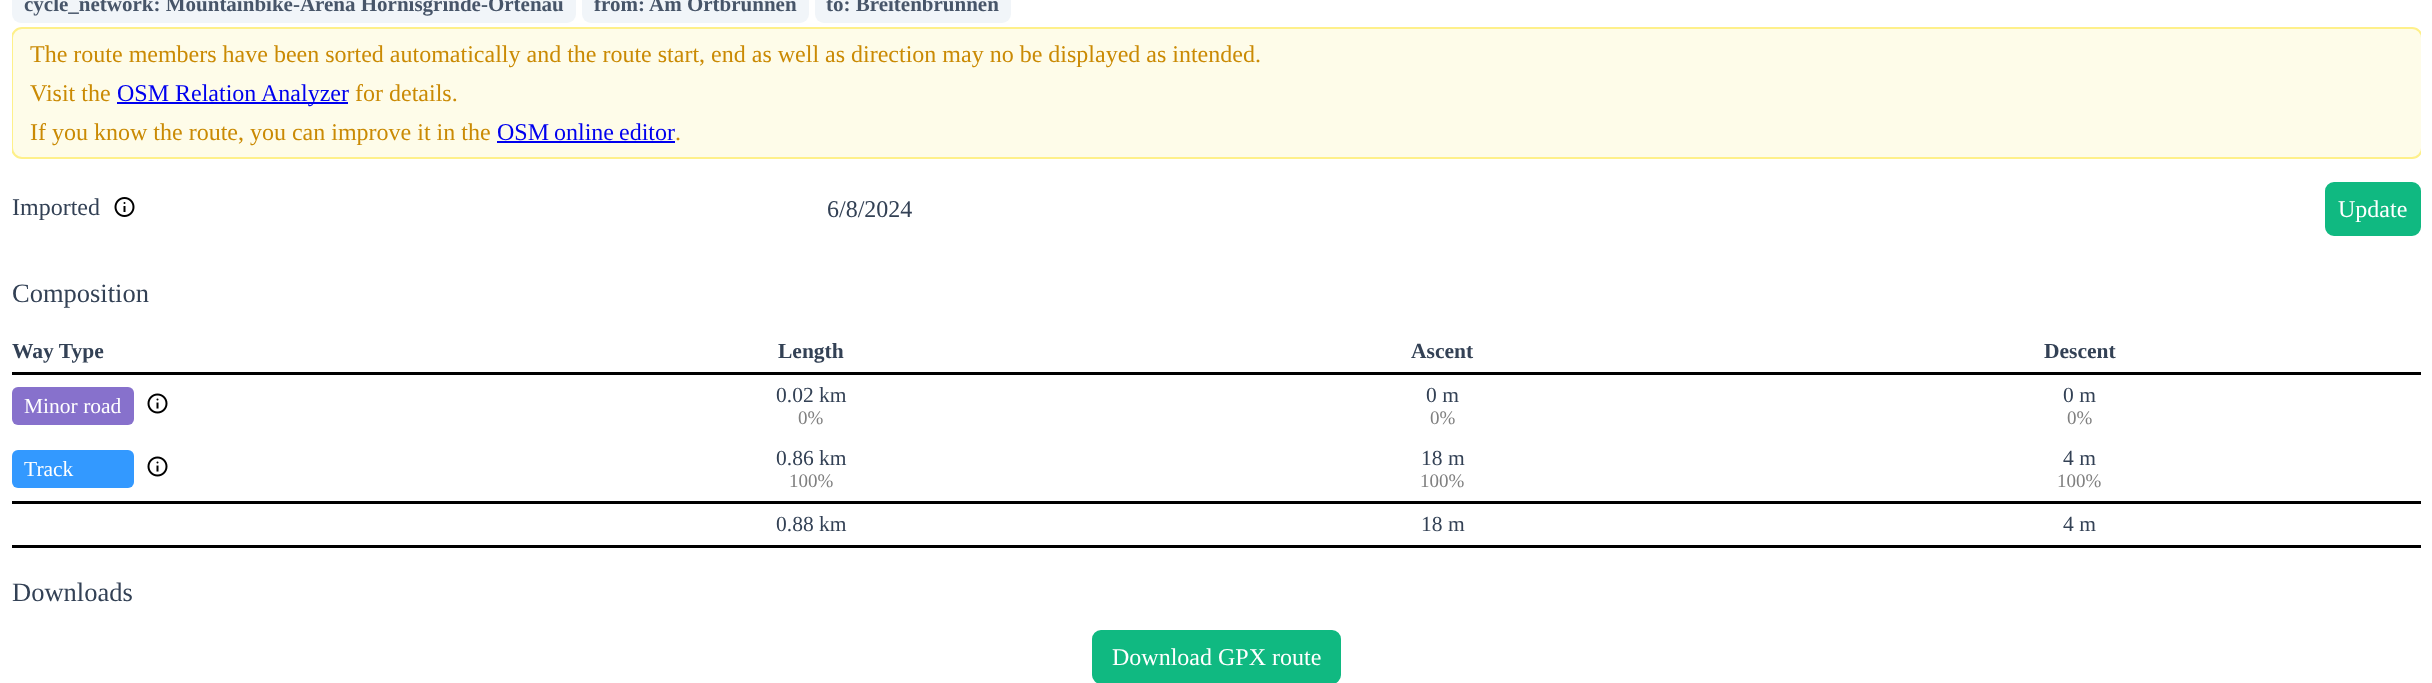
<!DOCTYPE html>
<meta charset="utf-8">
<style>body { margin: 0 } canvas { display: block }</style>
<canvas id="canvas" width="2432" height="683"></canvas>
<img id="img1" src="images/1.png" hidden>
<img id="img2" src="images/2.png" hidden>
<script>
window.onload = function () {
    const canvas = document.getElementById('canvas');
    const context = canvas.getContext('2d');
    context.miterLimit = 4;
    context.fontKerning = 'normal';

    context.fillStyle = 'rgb(255, 255, 255)';
    context.fillRect(0, 0, 2432, 683);
    context.fillStyle = 'rgb(241, 245, 249)';
    context.beginPath();
    context.roundRect(12, -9, 564, 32, 9);
    context.fill();
    context.beginPath();
    context.roundRect(582, -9, 227, 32, 9);
    context.fill();
    context.beginPath();
    context.roundRect(815, -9, 196, 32, 9);
    context.fill();
    context.fillStyle = 'rgba(254, 252, 232, 0.95)';
    context.beginPath();
    context.roundRect(12, 29, 2409, 129, 9);
    context.fill();
    context.fillStyle = 'rgb(0, 0, 238)';
    context.fillRect(117, 102, 231, 2);
    context.fillRect(497, 141, 178, 2);
    context.save();
    context.beginPath();
    context.rect(12, 0, 2409, 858);
    context.clip();
    context.beginPath();
    context.roundRect(12, 28, 2410, 130, 10);
    context.strokeStyle = 'rgb(254, 240, 138)';
    context.lineWidth = 2;
    context.stroke();
    context.restore();
    context.drawImage(document.getElementById('img1'), 114, 197, 21, 20);
    context.fillStyle = 'rgb(16, 185, 129)';
    context.beginPath();
    context.roundRect(2326, 183, 94, 52, 8);
    context.fill();
    context.strokeStyle = 'rgb(16, 185, 129)';
    context.lineWidth = 2;
    context.stroke();
    context.fillStyle = 'rgb(0, 0, 0)';
    context.fillRect(12, 372, 2409, 3);
    context.fillStyle = 'rgb(135, 113, 204)';
    context.beginPath();
    context.roundRect(12, 387, 122, 38, 6);
    context.fill();
    context.drawImage(document.getElementById('img2'), 147, 393, 21, 21);
    context.fillStyle = 'rgb(51, 153, 255)';
    context.beginPath();
    context.roundRect(12, 450, 122, 38, 6);
    context.fill();
    context.drawImage(document.getElementById('img2'), 147, 456, 21, 21);
    context.fillStyle = 'rgb(0, 0, 0)';
    context.fillRect(12, 501, 2409, 3);
    context.fillRect(12, 545, 2409, 3);
    context.fillStyle = 'rgb(16, 185, 129)';
    context.beginPath();
    context.roundRect(1093, 631, 247, 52, 8);
    context.fill();
    context.stroke();
    context.font = 'bold 21px Liberation Serif';
    context.fillStyle = 'rgb(71, 85, 105)';
    context.fillText('cycle_network: Mountainbike-Arena Hornisgrinde-Ortenau', 24, 11);
    context.fillText('from: Am Ortbrunnen', 594, 11);
    context.fillText('to: Breitenbrunnen', 826, 11);
    context.font = '24px Liberation Serif';
    context.fillStyle = 'rgb(202, 138, 4)';
    context.fillText('The route members have been sorted automatically and the route start, end as well as direction may no be displayed as intended.', 30, 62);
    context.fillText('Visit the', 30, 101);
    context.fillStyle = 'rgb(0, 0, 238)';
    context.fillText('OSM Relation Analyzer', 117, 101);
    context.fillStyle = 'rgb(202, 138, 4)';
    context.fillText('for details.', 355, 101);
    context.fillText('If you know the route, you can improve it in the', 30, 140);
    context.wordSpacing = '-1px';
    context.fillStyle = 'rgb(0, 0, 238)';
    context.fillText('OSM online editor', 497, 140);
    context.wordSpacing = '0px';
    context.fillStyle = 'rgb(202, 138, 4)';
    context.fillText('.', 675, 140);
    context.fillStyle = 'rgb(51, 65, 85)';
    context.fillText('Imported', 12, 215);
    context.fillText('6/8/2024', 827, 217);
    context.fillStyle = 'rgb(255, 255, 255)';
    context.fillText('Update', 2338, 217);
    context.font = '26.5px Liberation Serif';
    context.fillStyle = 'rgb(51, 65, 85)';
    context.fillText('Composition', 12, 302);
    context.font = 'bold 21.5px Liberation Serif';
    context.fillText('Way Type', 12, 358);
    context.fillText('Length', 778, 358);
    context.fillText('Ascent', 1411, 358);
    context.fillText('Descent', 2044, 358);
    context.font = '21.5px Liberation Serif';
    context.fillStyle = 'rgb(255, 255, 255)';
    context.fillText('Minor road', 24, 413);
    context.fillStyle = 'rgb(51, 65, 85)';
    context.fillText('0.02 km', 776, 402);
    context.font = '19px Liberation Serif';
    context.fillStyle = 'rgb(128, 128, 128)';
    context.fillText('0%', 798, 424);
    context.font = '21.5px Liberation Serif';
    context.fillStyle = 'rgb(51, 65, 85)';
    context.fillText('0 m', 1426, 402);
    context.font = '19px Liberation Serif';
    context.fillStyle = 'rgb(128, 128, 128)';
    context.fillText('0%', 1430, 424);
    context.font = '21.5px Liberation Serif';
    context.fillStyle = 'rgb(51, 65, 85)';
    context.fillText('0 m', 2063, 402);
    context.font = '19px Liberation Serif';
    context.fillStyle = 'rgb(128, 128, 128)';
    context.fillText('0%', 2067, 424);
    context.font = '21.5px Liberation Serif';
    context.fillStyle = 'rgb(255, 255, 255)';
    context.fillText('Track', 24, 476);
    context.fillStyle = 'rgb(51, 65, 85)';
    context.fillText('0.86 km', 776, 465);
    context.font = '19px Liberation Serif';
    context.fillStyle = 'rgb(128, 128, 128)';
    context.fillText('100%', 789, 487);
    context.font = '21.5px Liberation Serif';
    context.fillStyle = 'rgb(51, 65, 85)';
    context.fillText('18 m', 1421, 465);
    context.font = '19px Liberation Serif';
    context.fillStyle = 'rgb(128, 128, 128)';
    context.fillText('100%', 1420, 487);
    context.font = '21.5px Liberation Serif';
    context.fillStyle = 'rgb(51, 65, 85)';
    context.fillText('4 m', 2063, 465);
    context.font = '19px Liberation Serif';
    context.fillStyle = 'rgb(128, 128, 128)';
    context.fillText('100%', 2057, 487);
    context.font = '21.5px Liberation Serif';
    context.fillStyle = 'rgb(51, 65, 85)';
    context.fillText('0.88 km', 776, 531);
    context.fillText('18 m', 1421, 531);
    context.fillText('4 m', 2063, 531);
    context.font = '26.5px Liberation Serif';
    context.fillText('Downloads', 12, 601);
    context.font = '24px Liberation Serif';
    context.fillStyle = 'rgb(255, 255, 255)';
    context.fillText('Download GPX route', 1112, 665);
};
</script>
